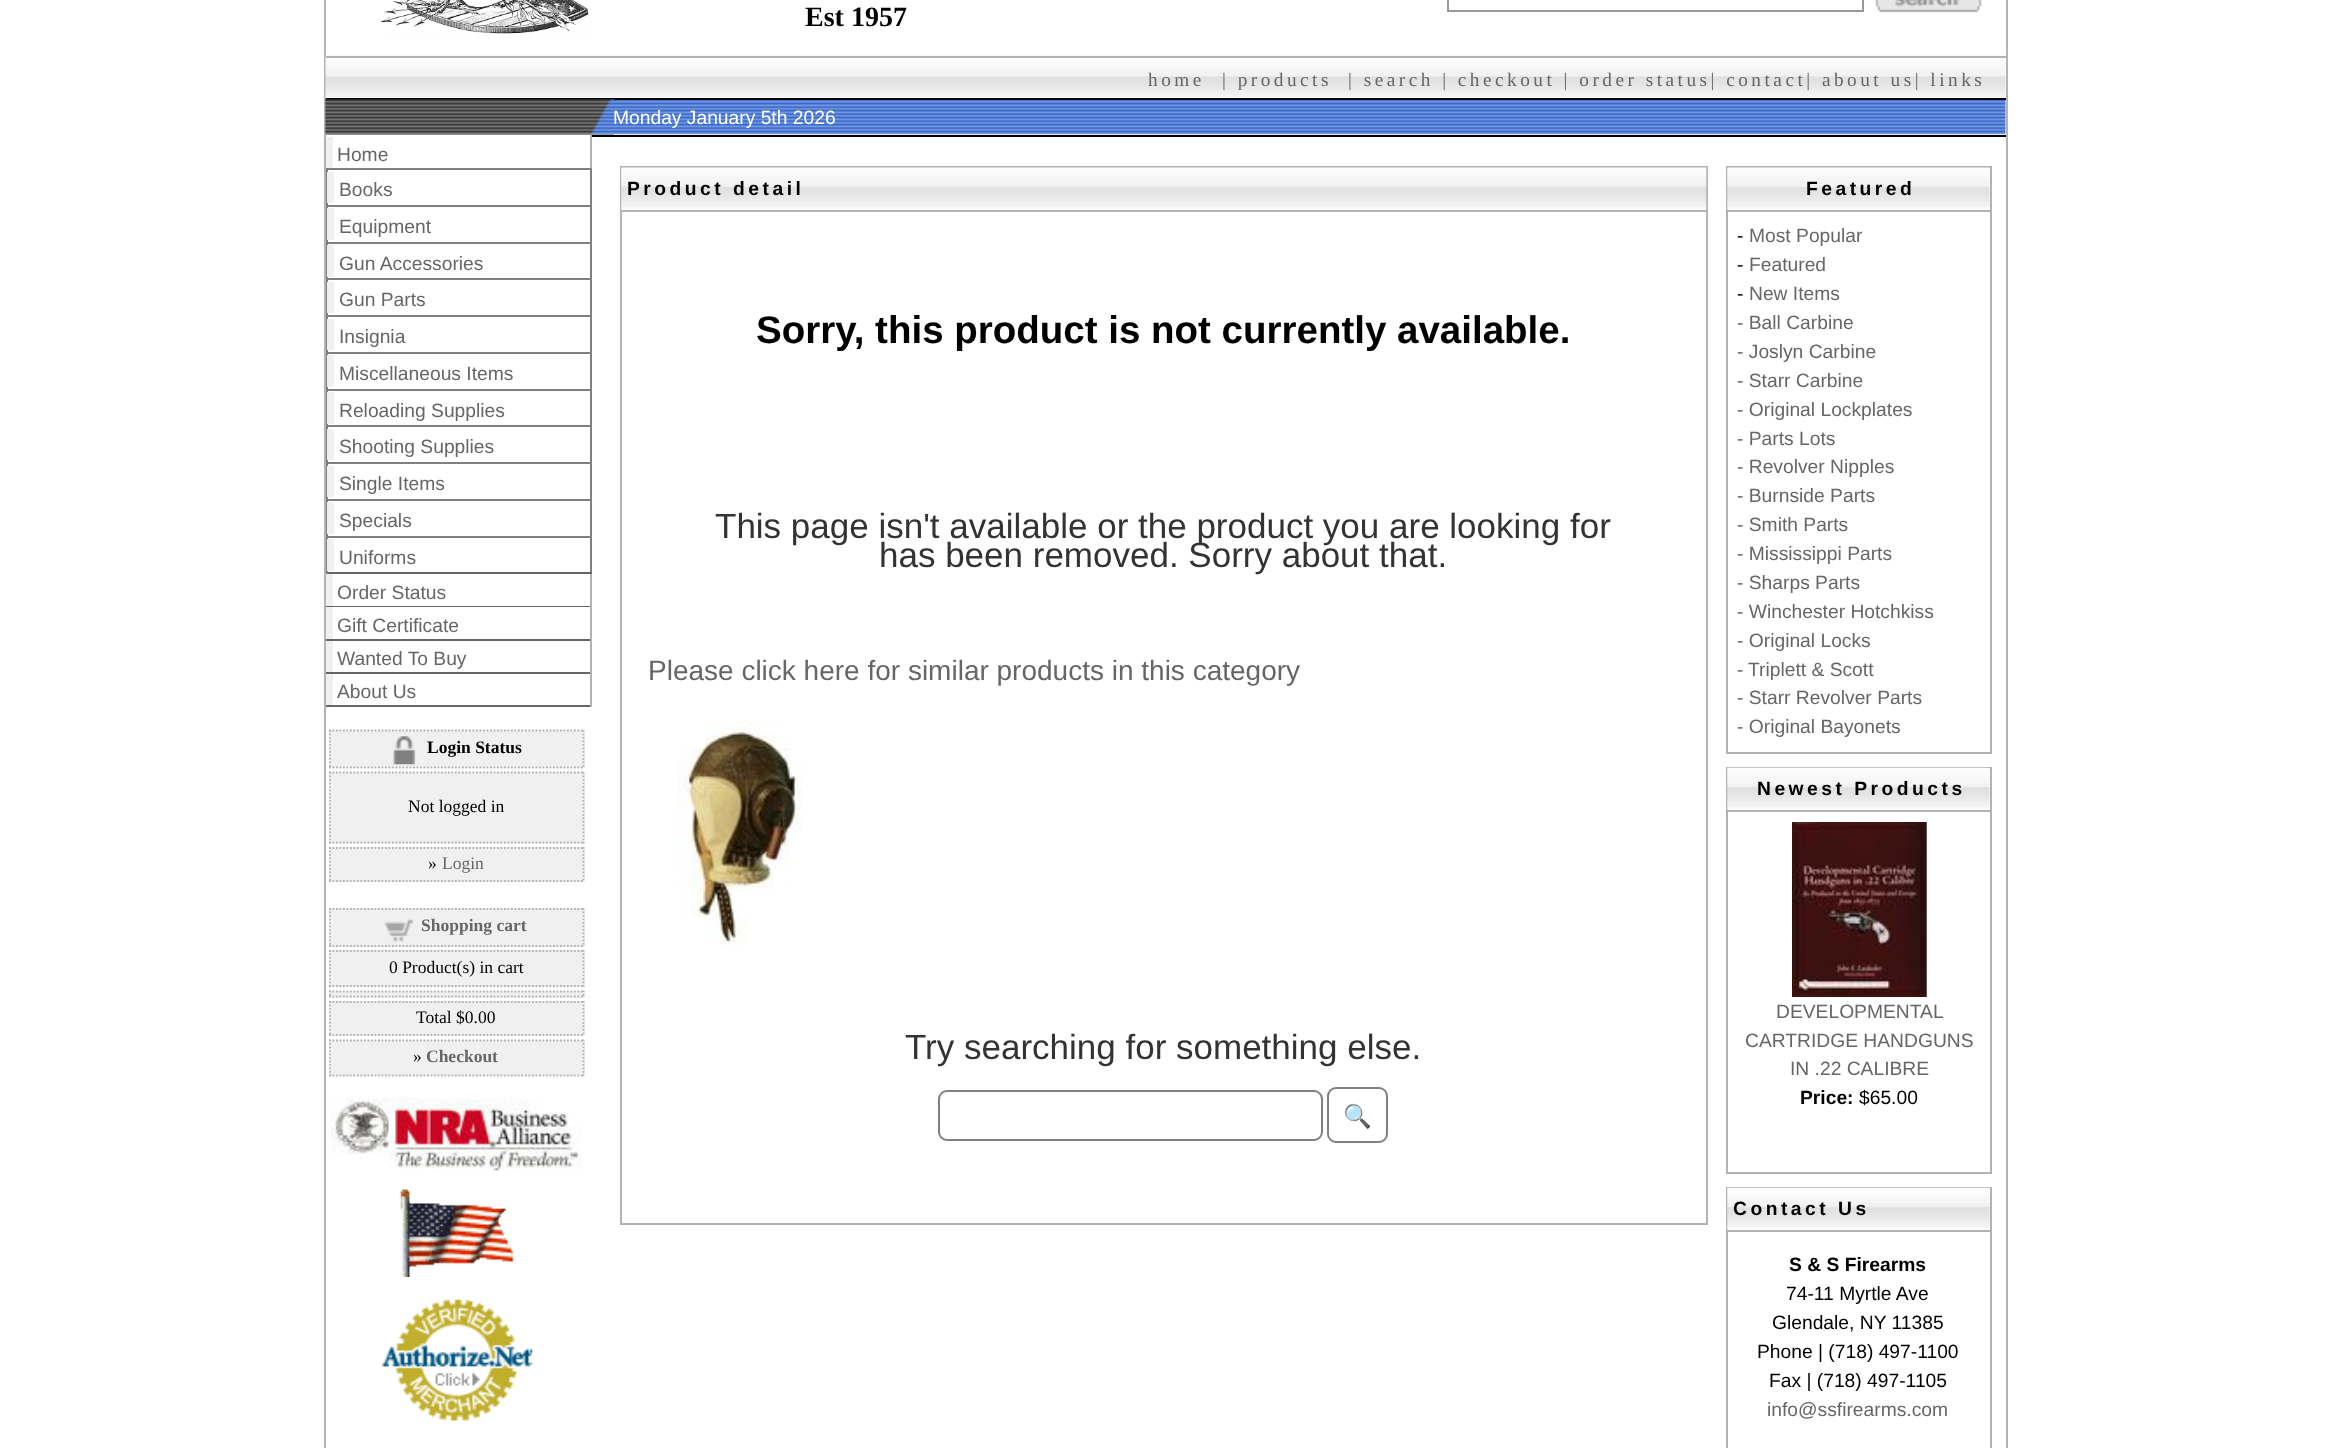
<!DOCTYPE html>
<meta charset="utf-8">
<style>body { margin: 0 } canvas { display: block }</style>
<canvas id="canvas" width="2328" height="1448"></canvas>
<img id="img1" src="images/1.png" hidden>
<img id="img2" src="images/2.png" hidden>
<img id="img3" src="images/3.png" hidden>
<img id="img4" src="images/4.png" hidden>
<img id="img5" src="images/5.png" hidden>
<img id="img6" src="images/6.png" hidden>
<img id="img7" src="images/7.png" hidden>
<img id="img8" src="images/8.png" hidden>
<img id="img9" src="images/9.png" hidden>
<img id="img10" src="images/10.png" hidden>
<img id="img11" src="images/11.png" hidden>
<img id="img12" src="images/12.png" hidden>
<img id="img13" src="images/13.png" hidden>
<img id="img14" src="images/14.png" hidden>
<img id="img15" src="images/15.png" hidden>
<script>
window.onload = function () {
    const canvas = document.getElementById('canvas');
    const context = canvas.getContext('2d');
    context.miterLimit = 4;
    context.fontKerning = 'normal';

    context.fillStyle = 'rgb(255, 255, 255)';
    context.fillRect(0, 0, 2328, 1448);
    context.fillStyle = 'rgb(179, 179, 179)';
    context.fillRect(2006, 0, 2, 1448);
    context.fillRect(324, 0, 2, 1448);
    context.strokeStyle = 'rgb(153, 153, 153)';
    context.lineWidth = 2;
    context.strokeRect(1448, -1, 415, 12);
    context.drawImage(document.getElementById('img1'), 1875, 0, 107, 13);
    context.drawImage(document.getElementById('img2'), 380, 0, 209, 34);
    context.drawImage(document.getElementById('img3'), 325, 55, 1681, 43);
    context.fillRect(326, 56, 1680, 2);
    context.drawImage(document.getElementById('img4'), 325, 99, 1681, 36);
    context.fillStyle = 'rgb(0, 0, 0)';
    context.fillRect(326, 98, 1680, 2);
    context.fillRect(592, 135, 1414, 2);
    context.fillStyle = 'rgb(153, 153, 153)';
    context.fillRect(326, 134, 288, 1);
    context.drawImage(document.getElementById('img5'), 325, 99, 290, 36);
    context.fillStyle = 'rgb(179, 179, 179)';
    context.fillRect(590, 135, 2, 572);
    context.fillStyle = 'rgb(240, 240, 240)';
    context.fillRect(326, 137, 7, 31);
    context.fillStyle = 'rgb(128, 128, 128)';
    context.fillRect(326, 168, 266, 2);
    context.fillRect(590, 168, 2, 39);
    context.fillRect(326, 168, 2, 39);
    context.fillStyle = 'rgb(240, 240, 240)';
    context.fillRect(327, 172, 7, 31);
    context.fillStyle = 'rgb(128, 128, 128)';
    context.fillRect(326, 205, 266, 2);
    context.fillRect(590, 205, 2, 38);
    context.fillRect(326, 205, 2, 38);
    context.fillStyle = 'rgb(240, 240, 240)';
    context.fillRect(327, 208, 7, 32);
    context.fillStyle = 'rgb(128, 128, 128)';
    context.fillRect(326, 242, 266, 2);
    context.fillRect(590, 242, 2, 38);
    context.fillRect(326, 242, 2, 38);
    context.fillStyle = 'rgb(240, 240, 240)';
    context.fillRect(327, 245, 7, 32);
    context.fillStyle = 'rgb(128, 128, 128)';
    context.fillRect(326, 278, 266, 2);
    context.fillRect(590, 278, 2, 39);
    context.fillRect(326, 278, 2, 39);
    context.fillStyle = 'rgb(240, 240, 240)';
    context.fillRect(327, 282, 7, 31);
    context.fillStyle = 'rgb(128, 128, 128)';
    context.fillRect(326, 315, 266, 2);
    context.fillRect(590, 315, 2, 39);
    context.fillRect(326, 315, 2, 39);
    context.fillStyle = 'rgb(240, 240, 240)';
    context.fillRect(327, 319, 7, 31);
    context.fillStyle = 'rgb(128, 128, 128)';
    context.fillRect(326, 352, 266, 2);
    context.fillRect(590, 352, 2, 38);
    context.fillRect(326, 352, 2, 38);
    context.fillStyle = 'rgb(240, 240, 240)';
    context.fillRect(327, 355, 7, 32);
    context.fillStyle = 'rgb(128, 128, 128)';
    context.fillRect(326, 389, 266, 2);
    context.fillRect(590, 389, 2, 38);
    context.fillRect(326, 389, 2, 38);
    context.fillStyle = 'rgb(240, 240, 240)';
    context.fillRect(327, 392, 7, 32);
    context.fillStyle = 'rgb(128, 128, 128)';
    context.fillRect(326, 425, 266, 2);
    context.fillRect(590, 425, 2, 39);
    context.fillRect(326, 425, 2, 39);
    context.fillStyle = 'rgb(240, 240, 240)';
    context.fillRect(327, 429, 7, 31);
    context.fillStyle = 'rgb(128, 128, 128)';
    context.fillRect(326, 462, 266, 2);
    context.fillRect(590, 462, 2, 39);
    context.fillRect(326, 462, 2, 39);
    context.fillStyle = 'rgb(240, 240, 240)';
    context.fillRect(327, 466, 7, 31);
    context.fillStyle = 'rgb(128, 128, 128)';
    context.fillRect(326, 499, 266, 2);
    context.fillRect(590, 499, 2, 38);
    context.fillRect(326, 499, 2, 38);
    context.fillStyle = 'rgb(240, 240, 240)';
    context.fillRect(327, 502, 7, 32);
    context.fillStyle = 'rgb(128, 128, 128)';
    context.fillRect(326, 536, 266, 2);
    context.fillRect(590, 536, 2, 38);
    context.fillStyle = 'rgb(102, 102, 102)';
    context.fillRect(326, 572, 266, 2);
    context.fillStyle = 'rgb(128, 128, 128)';
    context.fillRect(326, 536, 2, 38);
    context.fillStyle = 'rgb(240, 240, 240)';
    context.fillRect(327, 539, 7, 32);
    context.fillStyle = 'rgb(102, 102, 102)';
    context.fillRect(326, 606, 264, 1);
    context.fillStyle = 'rgb(240, 240, 240)';
    context.fillRect(326, 574, 7, 32);
    context.fillStyle = 'rgb(102, 102, 102)';
    context.fillRect(326, 639, 264, 2);
    context.fillStyle = 'rgb(240, 240, 240)';
    context.fillRect(326, 607, 7, 32);
    context.fillStyle = 'rgb(102, 102, 102)';
    context.fillRect(326, 672, 264, 2);
    context.fillStyle = 'rgb(240, 240, 240)';
    context.fillRect(326, 641, 7, 31);
    context.fillStyle = 'rgb(102, 102, 102)';
    context.fillRect(326, 705, 264, 2);
    context.fillStyle = 'rgb(240, 240, 240)';
    context.fillRect(326, 674, 7, 31);
    context.fillRect(329, 730, 256, 38);
    context.beginPath();
    context.moveTo(329, 730.5);
    context.lineTo(584.5, 730.5);
    context.strokeStyle = 'rgb(179, 179, 179)';
    context.lineWidth = 1.8;
    context.setLineDash([1.75, 1.75]);
    context.stroke();
    context.beginPath();
    context.moveTo(583.5, 730);
    context.lineTo(583.5, 768);
    context.stroke();
    context.beginPath();
    context.moveTo(329, 767.5);
    context.lineTo(584.5, 767.5);
    context.stroke();
    context.beginPath();
    context.moveTo(330, 730);
    context.lineTo(330, 768);
    context.stroke();
    context.drawImage(document.getElementById('img6'), 393, 736, 23, 29);
    context.fillRect(329, 772, 256, 72);
    context.beginPath();
    context.moveTo(329, 772.5);
    context.lineTo(584.5, 772.5);
    context.stroke();
    context.beginPath();
    context.moveTo(583.5, 772);
    context.lineTo(583.5, 843.5);
    context.stroke();
    context.beginPath();
    context.moveTo(329, 842.5);
    context.lineTo(584.5, 842.5);
    context.stroke();
    context.beginPath();
    context.moveTo(330, 772);
    context.lineTo(330, 843.5);
    context.stroke();
    context.fillRect(329, 847, 256, 35);
    context.beginPath();
    context.moveTo(329, 848);
    context.lineTo(584.5, 848);
    context.stroke();
    context.beginPath();
    context.moveTo(583.5, 847);
    context.lineTo(583.5, 882);
    context.stroke();
    context.beginPath();
    context.moveTo(329, 881);
    context.lineTo(584.5, 881);
    context.stroke();
    context.beginPath();
    context.moveTo(330, 847);
    context.lineTo(330, 882);
    context.stroke();
    context.fillRect(329, 908, 256, 39);
    context.beginPath();
    context.moveTo(329, 909);
    context.lineTo(584.5, 909);
    context.stroke();
    context.beginPath();
    context.moveTo(583.5, 908);
    context.lineTo(583.5, 947);
    context.stroke();
    context.beginPath();
    context.moveTo(329, 946);
    context.lineTo(584.5, 946);
    context.stroke();
    context.beginPath();
    context.moveTo(330, 908);
    context.lineTo(330, 947);
    context.stroke();
    context.drawImage(document.getElementById('img7'), 385, 919, 28, 23);
    context.fillRect(329, 950, 256, 37);
    context.beginPath();
    context.moveTo(329, 951);
    context.lineTo(584.5, 951);
    context.stroke();
    context.beginPath();
    context.moveTo(583.5, 950);
    context.lineTo(583.5, 987);
    context.stroke();
    context.beginPath();
    context.moveTo(329, 986);
    context.lineTo(584.5, 986);
    context.stroke();
    context.beginPath();
    context.moveTo(330, 950);
    context.lineTo(330, 987);
    context.stroke();
    context.fillRect(329, 991, 256, 7);
    context.beginPath();
    context.moveTo(329, 991.5);
    context.lineTo(584.5, 991.5);
    context.stroke();
    context.beginPath();
    context.moveTo(583.5, 990.5);
    context.lineTo(583.5, 992);
    context.moveTo(583.5, 994);
    context.lineTo(583.5, 996);
    context.setLineDash([]);
    context.stroke();
    context.beginPath();
    context.moveTo(329, 996.5);
    context.lineTo(584.5, 996.5);
    context.setLineDash([1.75, 1.75]);
    context.stroke();
    context.beginPath();
    context.moveTo(330, 990.5);
    context.lineTo(330, 992);
    context.moveTo(330, 994);
    context.lineTo(330, 996);
    context.setLineDash([]);
    context.stroke();
    context.fillRect(329, 1001, 256, 35);
    context.beginPath();
    context.moveTo(329, 1002);
    context.lineTo(584.5, 1002);
    context.setLineDash([1.75, 1.75]);
    context.stroke();
    context.beginPath();
    context.moveTo(583.5, 1001);
    context.lineTo(583.5, 1036);
    context.stroke();
    context.beginPath();
    context.moveTo(329, 1035);
    context.lineTo(584.5, 1035);
    context.stroke();
    context.beginPath();
    context.moveTo(330, 1001);
    context.lineTo(330, 1036);
    context.stroke();
    context.fillRect(329, 1040, 256, 36);
    context.beginPath();
    context.moveTo(329, 1040.5);
    context.lineTo(584.5, 1040.5);
    context.stroke();
    context.beginPath();
    context.moveTo(583.5, 1039.5);
    context.lineTo(583.5, 1076);
    context.stroke();
    context.beginPath();
    context.moveTo(329, 1075.5);
    context.lineTo(584.5, 1075.5);
    context.stroke();
    context.beginPath();
    context.moveTo(330, 1039.5);
    context.lineTo(330, 1076);
    context.stroke();
    context.drawImage(document.getElementById('img8'), 330, 1098, 253, 73);
    context.drawImage(document.getElementById('img9'), 400, 1189, 114, 88);
    context.drawImage(document.getElementById('img10'), 381, 1299, 152, 122);
    context.lineWidth = 2;
    context.setLineDash([]);
    context.strokeRect(621, 167, 1086, 1057);
    context.drawImage(document.getElementById('img11'), 621, 167, 1086, 43);
    context.fillStyle = 'rgb(179, 179, 179)';
    context.fillRect(621, 210, 1085, 2);
    context.drawImage(document.getElementById('img12'), 677, 720, 126, 225);
    context.beginPath();
    context.roundRect(939, 1091, 383, 49, 8);
    context.strokeStyle = 'rgb(128, 128, 128)';
    context.stroke();
    context.beginPath();
    context.roundRect(1328, 1088, 59, 54, 8);
    context.stroke();
    context.strokeStyle = 'rgb(179, 179, 179)';
    context.strokeRect(1727, 167, 264, 586);
    context.drawImage(document.getElementById('img13'), 1727, 167, 263, 43);
    context.fillRect(1727, 210, 263, 2);
    context.strokeRect(1727, 768, 264, 405);
    context.drawImage(document.getElementById('img14'), 1727, 767, 263, 43);
    context.fillRect(1727, 810, 263, 2);
    context.drawImage(document.getElementById('img15'), 1792, 822, 135, 175);
    context.strokeRect(1727, 1188, 264, 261);
    context.drawImage(document.getElementById('img14'), 1727, 1187, 263, 43);
    context.fillRect(1727, 1230, 263, 2);
    context.font = 'bold 28px Liberation Serif';
    context.fillStyle = 'rgb(0, 0, 0)';
    context.fillText('Est 1957', 805, 26);
    context.letterSpacing = '3.5px';
    context.font = '19.25px Liberation Serif';
    context.fillStyle = 'rgb(102, 102, 102)';
    context.fillText('home', 1148, 86);
    context.fillText('| products', 1222, 86);
    context.fillText('| search | checkout | order status| contact| about us| links', 1348, 86);
    context.letterSpacing = '0px';
    context.font = '19.25px Liberation Sans';
    context.fillStyle = 'rgb(255, 255, 255)';
    context.fillText('Monday January 5th 2026', 613, 124);
    context.fillStyle = 'rgb(102, 102, 102)';
    context.fillText('Home', 337, 161);
    context.fillText('Books', 339, 196);
    context.fillText('Equipment', 339, 233);
    context.fillText('Gun Accessories', 339, 270);
    context.fillText('Gun Parts', 339, 306);
    context.fillText('Insignia', 339, 343);
    context.fillText('Miscellaneous Items', 339, 380);
    context.fillText('Reloading Supplies', 339, 417);
    context.fillText('Shooting Supplies', 339, 453);
    context.fillText('Single Items', 339, 490);
    context.fillText('Specials', 339, 527);
    context.fillText('Uniforms', 339, 564);
    context.fillText('Order Status', 337, 599);
    context.fillText('Gift Certificate', 337, 632);
    context.fillText('Wanted To Buy', 337, 665);
    context.fillText('About Us', 337, 698);
    context.font = 'bold 17.5px Liberation Serif';
    context.fillStyle = 'rgb(0, 0, 0)';
    context.fillText('Login Status', 427, 753);
    context.font = '17.5px Liberation Serif';
    context.fillText('Not logged in', 408, 812);
    context.fillText('»', 428, 869);
    context.fillStyle = 'rgb(102, 102, 102)';
    context.fillText('Login', 442, 869);
    context.font = 'bold 17.5px Liberation Serif';
    context.fillText('Shopping cart', 421, 931);
    context.font = '17.5px Liberation Serif';
    context.fillStyle = 'rgb(0, 0, 0)';
    context.fillText('0 Product(s) in cart', 389, 973);
    context.fillText('Total $0.00', 416, 1023);
    context.fillText('»', 413, 1062);
    context.font = 'bold 17.5px Liberation Serif';
    context.fillStyle = 'rgb(102, 102, 102)';
    context.fillText('Checkout', 426, 1062);
    context.letterSpacing = '3.5px';
    context.font = 'bold 19.25px Liberation Sans';
    context.fillStyle = 'rgb(0, 0, 0)';
    context.fillText('Product detail', 627, 195);
    context.letterSpacing = '0px';
    context.font = 'bold 38.5px Liberation Sans';
    context.fillText('Sorry, this product is not currently available.', 756, 343);
    context.font = '35px Liberation Sans';
    context.fillStyle = 'rgb(51, 51, 51)';
    context.fillText('This page isn\'t available or the product you are looking for', 715, 538);
    context.fillText('has been removed. Sorry about that.', 879, 567);
    context.font = '28px Liberation Sans';
    context.fillStyle = 'rgb(102, 102, 102)';
    context.fillText('Please click here for similar products in this category', 648, 680);
    context.font = '35px Liberation Sans';
    context.fillStyle = 'rgb(51, 51, 51)';
    context.fillText('Try searching for something else.', 905, 1059);
    context.font = '23px Noto Color Emoji';
    context.fillStyle = 'rgb(0, 0, 0)';
    context.fillText('🔍', 1343, 1124);
    context.letterSpacing = '3.5px';
    context.font = 'bold 19.25px Liberation Sans';
    context.fillText('Featured', 1806, 195);
    context.letterSpacing = '0px';
    context.font = '19.25px Liberation Sans';
    context.fillText('-', 1737, 242);
    context.fillStyle = 'rgb(102, 102, 102)';
    context.fillText('Most Popular', 1749, 242);
    context.fillStyle = 'rgb(0, 0, 0)';
    context.fillText('-', 1737, 271);
    context.fillStyle = 'rgb(102, 102, 102)';
    context.fillText('Featured', 1749, 271);
    context.fillStyle = 'rgb(0, 0, 0)';
    context.fillText('-', 1737, 300);
    context.fillStyle = 'rgb(102, 102, 102)';
    context.fillText('New Items', 1749, 300);
    context.fillText('- Ball Carbine', 1737, 329);
    context.fillText('- Joslyn Carbine', 1737, 358);
    context.fillText('- Starr Carbine', 1737, 387);
    context.fillText('- Original Lockplates', 1737, 416);
    context.fillText('- Parts Lots', 1737, 445);
    context.fillText('- Revolver Nipples', 1737, 473);
    context.fillText('- Burnside Parts', 1737, 502);
    context.fillText('- Smith Parts', 1737, 531);
    context.fillText('- Mississippi Parts', 1737, 560);
    context.fillText('- Sharps Parts', 1737, 589);
    context.fillText('- Winchester Hotchkiss', 1737, 618);
    context.fillText('- Original Locks', 1737, 647);
    context.fillText('-', 1737, 676);
    context.fillText('Triplett & Scott', 1748, 676);
    context.fillText('- Starr Revolver Parts', 1737, 704);
    context.fillText('- Original Bayonets', 1737, 733);
    context.letterSpacing = '3.5px';
    context.font = 'bold 19.25px Liberation Sans';
    context.fillStyle = 'rgb(0, 0, 0)';
    context.fillText('Newest Products', 1757, 795);
    context.letterSpacing = '0px';
    context.font = '19.25px Liberation Sans';
    context.fillStyle = 'rgb(102, 102, 102)';
    context.fillText('DEVELOPMENTAL', 1776, 1018);
    context.fillText('CARTRIDGE HANDGUNS', 1745, 1047);
    context.fillText('IN .22 CALIBRE', 1790, 1075);
    context.font = 'bold 19.25px Liberation Sans';
    context.fillStyle = 'rgb(0, 0, 0)';
    context.fillText('Price:', 1800, 1104);
    context.font = '19.25px Liberation Sans';
    context.fillText('$65.00', 1859, 1104);
    context.letterSpacing = '3.5px';
    context.font = 'bold 19.25px Liberation Sans';
    context.fillText('Contact Us', 1733, 1215);
    context.letterSpacing = '0px';
    context.fillText('S & S Firearms', 1789, 1271);
    context.font = '19.25px Liberation Sans';
    context.fillText('74-11 Myrtle Ave', 1786, 1300);
    context.fillText('Glendale, NY 11385', 1772, 1329);
    context.fillText('Phone | (718) 497-1100', 1757, 1358);
    context.fillText('Fax | (718) 497-1105', 1769, 1387);
    context.fillStyle = 'rgb(102, 102, 102)';
    context.fillText('info@ssfirearms.com', 1767, 1416);
};
</script>
